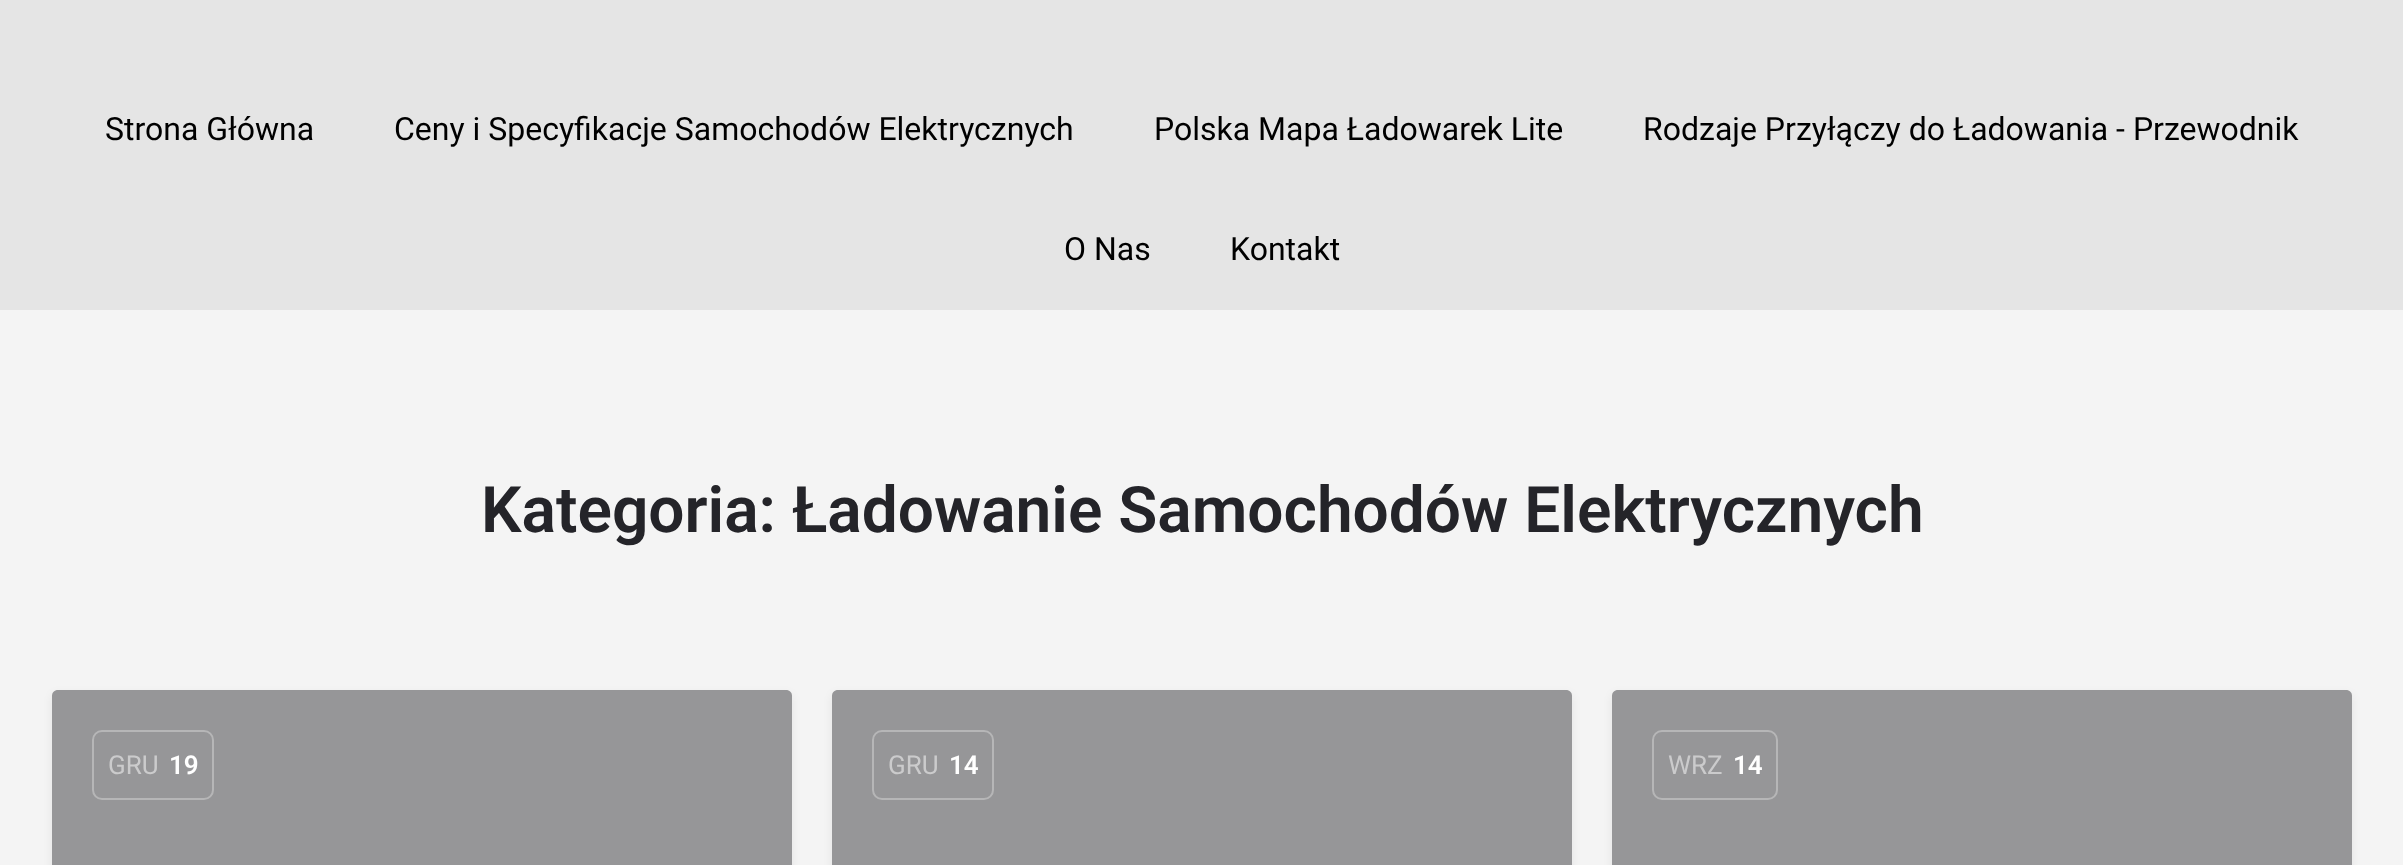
<!DOCTYPE html>
<meta charset="utf-8">
<style>body { margin: 0 } canvas { display: block }</style>
<canvas id="canvas" width="2403" height="865"></canvas>
<script>
window.onload = function () {
    const canvas = document.getElementById('canvas');
    const context = canvas.getContext('2d');
    context.miterLimit = 4;
    context.fontKerning = 'normal';

    context.fillStyle = 'rgb(244, 244, 244)';
    context.fillRect(0, 0, 2403, 865);
    context.fillStyle = 'rgb(229, 229, 229)';
    context.fillRect(0, 0, 2403, 310);
    context.fillStyle = 'rgba(0, 0, 0, 0.07)';
    context.filter = 'blur(5px)';
    context.beginPath();
    context.roundRect(52, 694, 740, 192, 6);
    context.fill();
    context.filter = 'none';
    context.fillStyle = 'rgb(227, 227, 227)';
    context.beginPath();
    context.moveTo(58, 690);
    context.lineTo(786, 690);
    context.bezierCurveTo(789.5, 690, 792, 692.5, 792, 696);
    context.lineTo(792, 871);
    context.lineTo(52, 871);
    context.lineTo(52, 696);
    context.bezierCurveTo(52, 692.5, 54.5, 690, 58, 690);
    context.closePath();
    context.fill();
    context.fillStyle = 'rgba(36, 36, 41, 0.4)';
    context.beginPath();
    context.moveTo(58, 690);
    context.lineTo(786, 690);
    context.bezierCurveTo(789.5, 690, 792, 692.5, 792, 696);
    context.lineTo(792, 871);
    context.lineTo(52, 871);
    context.lineTo(52, 696);
    context.bezierCurveTo(52, 692.5, 54.5, 690, 58, 690);
    context.closePath();
    context.fill();
    context.beginPath();
    context.roundRect(93, 731, 120, 68, 9);
    context.strokeStyle = 'rgb(182, 182, 183)';
    context.lineWidth = 2;
    context.stroke();
    context.fillStyle = 'rgba(0, 0, 0, 0.07)';
    context.filter = 'blur(5px)';
    context.beginPath();
    context.roundRect(832, 694, 740, 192, 6);
    context.fill();
    context.filter = 'none';
    context.fillStyle = 'rgb(227, 227, 227)';
    context.beginPath();
    context.moveTo(838, 690);
    context.lineTo(1566, 690);
    context.bezierCurveTo(1569.5, 690, 1572, 692.5, 1572, 696);
    context.lineTo(1572, 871);
    context.lineTo(832, 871);
    context.lineTo(832, 696);
    context.bezierCurveTo(832, 692.5, 834.5, 690, 838, 690);
    context.closePath();
    context.fill();
    context.fillStyle = 'rgba(36, 36, 41, 0.4)';
    context.beginPath();
    context.moveTo(838, 690);
    context.lineTo(1566, 690);
    context.bezierCurveTo(1569.5, 690, 1572, 692.5, 1572, 696);
    context.lineTo(1572, 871);
    context.lineTo(832, 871);
    context.lineTo(832, 696);
    context.bezierCurveTo(832, 692.5, 834.5, 690, 838, 690);
    context.closePath();
    context.fill();
    context.beginPath();
    context.roundRect(873, 731, 120, 68, 9);
    context.stroke();
    context.fillStyle = 'rgba(0, 0, 0, 0.07)';
    context.filter = 'blur(5px)';
    context.beginPath();
    context.roundRect(1612, 694, 740, 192, 6);
    context.fill();
    context.filter = 'none';
    context.fillStyle = 'rgb(227, 227, 227)';
    context.beginPath();
    context.moveTo(1618, 690);
    context.lineTo(2346, 690);
    context.bezierCurveTo(2349.5, 690, 2352, 692.5, 2352, 696);
    context.lineTo(2352, 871);
    context.lineTo(1612, 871);
    context.lineTo(1612, 696);
    context.bezierCurveTo(1612, 692.5, 1614.5, 690, 1618, 690);
    context.closePath();
    context.fill();
    context.fillStyle = 'rgba(36, 36, 41, 0.4)';
    context.beginPath();
    context.moveTo(1618, 690);
    context.lineTo(2346, 690);
    context.bezierCurveTo(2349.5, 690, 2352, 692.5, 2352, 696);
    context.lineTo(2352, 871);
    context.lineTo(1612, 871);
    context.lineTo(1612, 696);
    context.bezierCurveTo(1612, 692.5, 1614.5, 690, 1618, 690);
    context.closePath();
    context.fill();
    context.beginPath();
    context.roundRect(1653, 731, 124, 68, 9);
    context.stroke();
    context.font = '32px Roboto';
    context.fillStyle = 'rgb(0, 0, 0)';
    context.fillText('Strona Główna', 105, 140);
    context.fillText('Ceny i Specyfikacje Samochodów Elektrycznych', 394, 140);
    context.fillText('Polska Mapa Ładowarek Lite', 1154, 140);
    context.fillText('Rodzaje Przyłączy do Ładowania - Przewodnik', 1643, 140);
    context.fillText('O Nas', 1064, 260);
    context.fillText('Kontakt', 1230, 260);
    context.font = '600 64px Roboto';
    context.fillStyle = 'rgb(36, 36, 41)';
    context.fillText('Kategoria: Ładowanie Samochodów Elektrycznych', 481, 532);
    context.font = '26px Roboto';
    context.fillStyle = 'rgb(203, 203, 204)';
    context.fillText('GRU', 108, 774);
    context.font = '600 26px Roboto';
    context.fillStyle = 'rgb(255, 255, 255)';
    context.fillText('19', 169, 774);
    context.font = '26px Roboto';
    context.fillStyle = 'rgb(203, 203, 204)';
    context.fillText('GRU', 888, 774);
    context.font = '600 26px Roboto';
    context.fillStyle = 'rgb(255, 255, 255)';
    context.fillText('14', 949, 774);
    context.font = '26px Roboto';
    context.fillStyle = 'rgb(203, 203, 204)';
    context.fillText('WRZ', 1668, 774);
    context.font = '600 26px Roboto';
    context.fillStyle = 'rgb(255, 255, 255)';
    context.fillText('14', 1733, 774);
};
</script>
